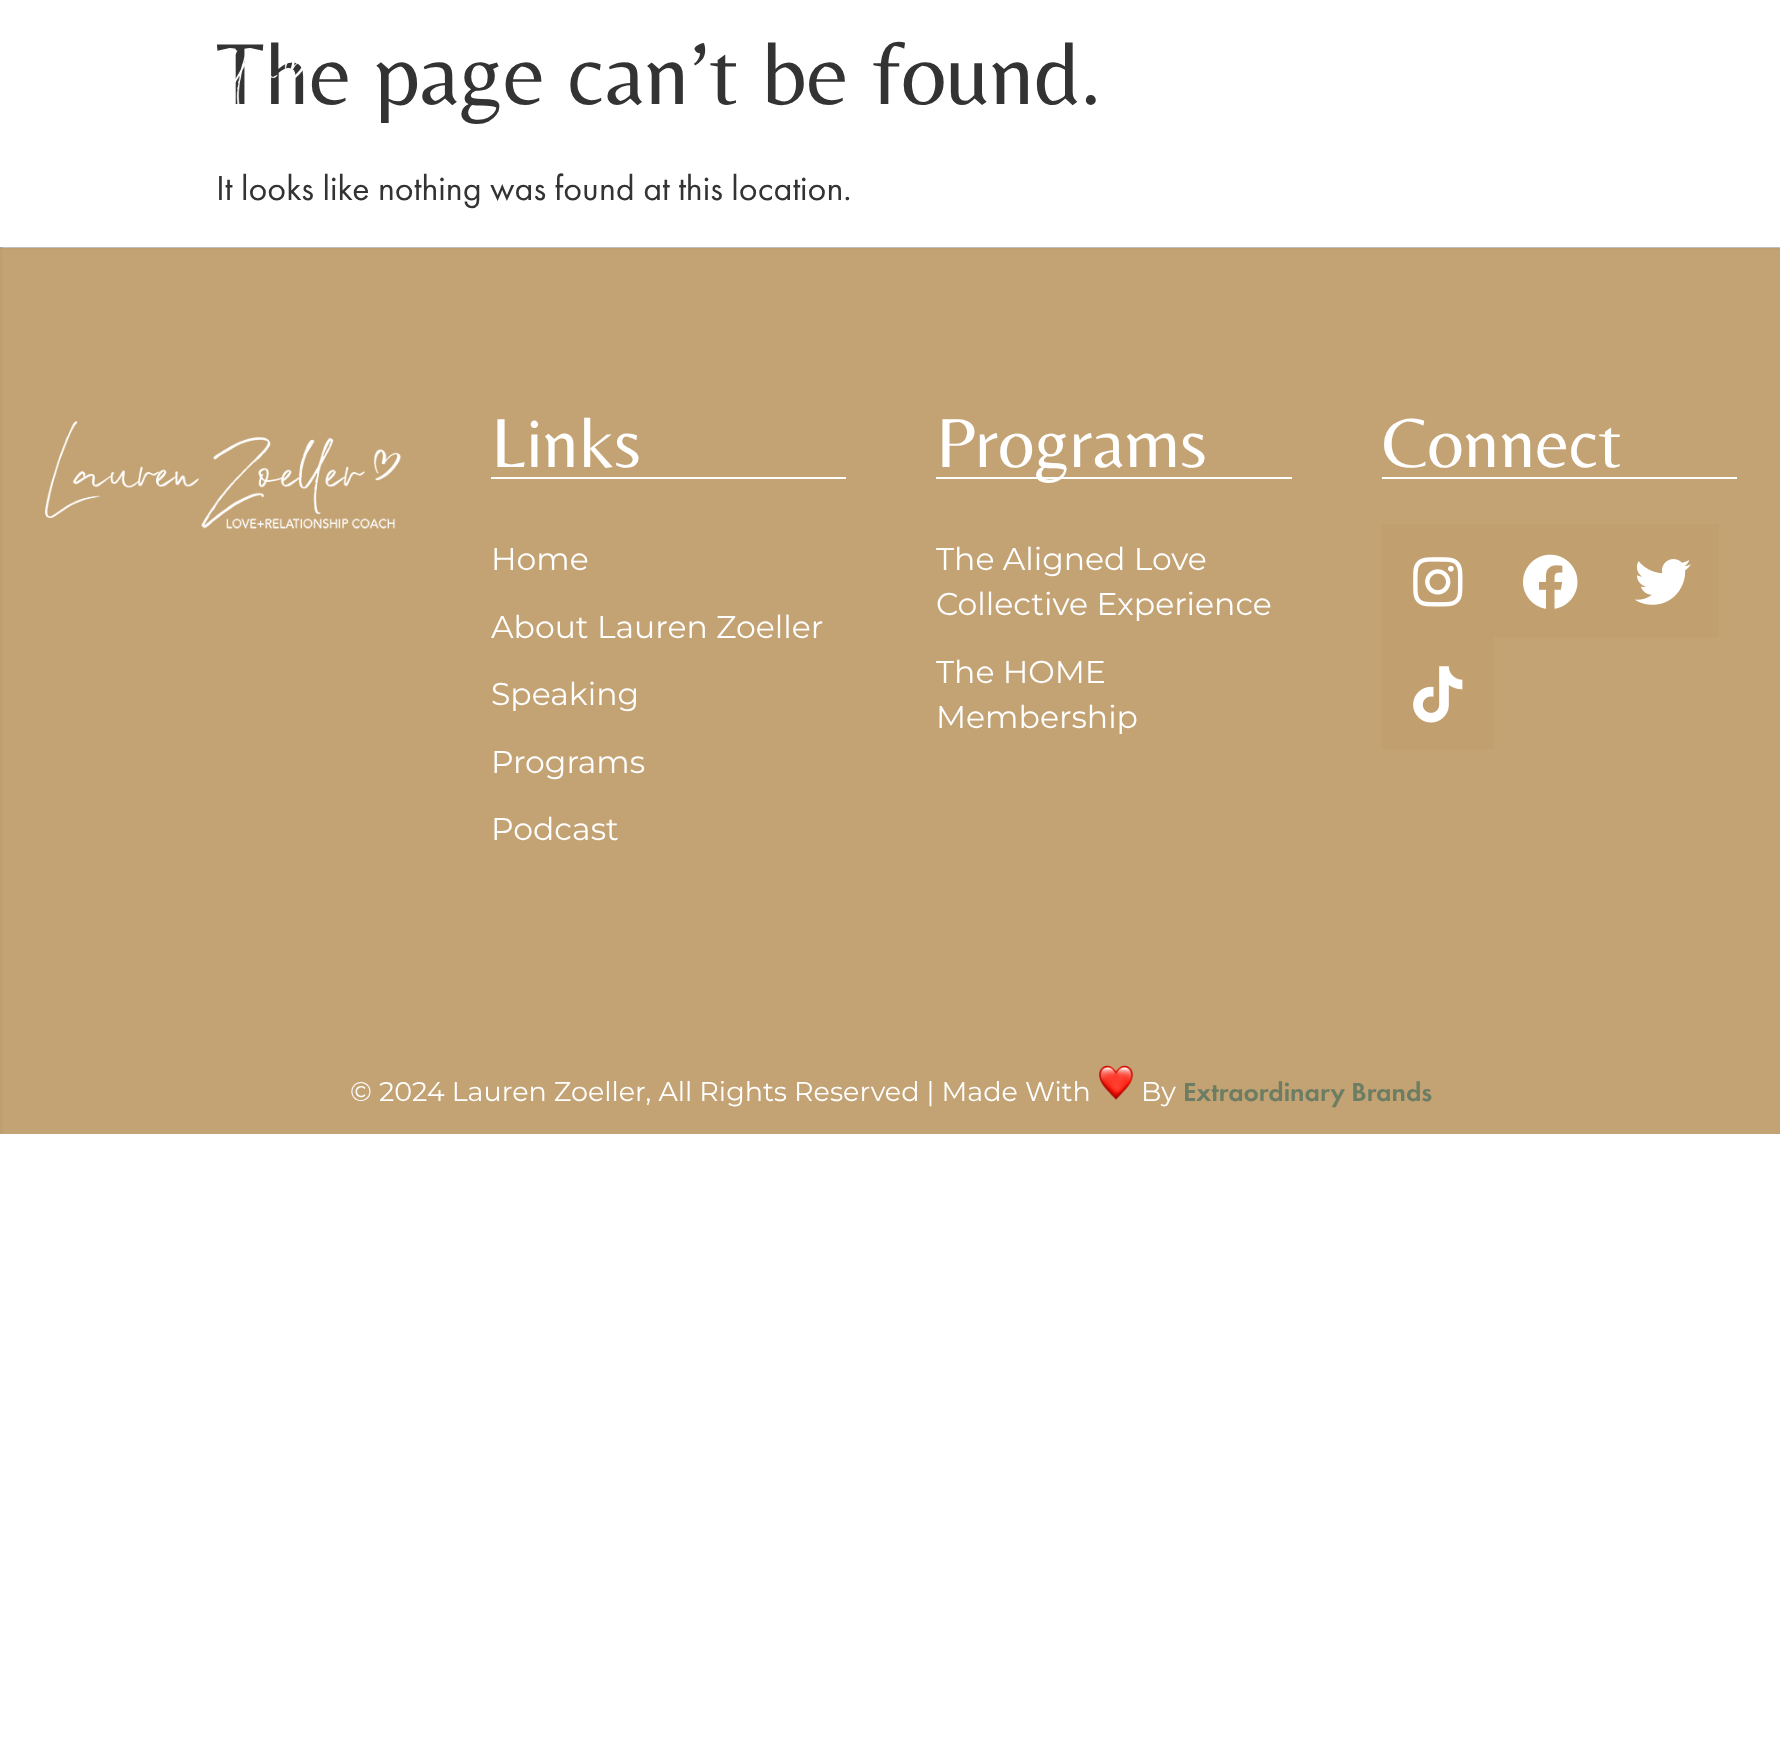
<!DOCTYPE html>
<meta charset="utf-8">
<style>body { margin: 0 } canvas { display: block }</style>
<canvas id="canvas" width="1780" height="1763"></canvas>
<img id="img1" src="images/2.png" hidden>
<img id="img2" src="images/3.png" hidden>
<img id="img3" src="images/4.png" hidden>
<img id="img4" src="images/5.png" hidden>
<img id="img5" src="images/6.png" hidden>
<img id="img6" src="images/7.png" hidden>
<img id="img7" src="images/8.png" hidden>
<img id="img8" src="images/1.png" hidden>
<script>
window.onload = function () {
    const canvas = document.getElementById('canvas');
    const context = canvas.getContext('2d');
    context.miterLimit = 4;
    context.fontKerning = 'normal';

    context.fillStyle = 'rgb(255, 255, 255)';
    context.fillRect(0, 0, 1780, 1763);
    context.drawImage(document.getElementById('img1'), 0, 247, 1780, 887);
    context.drawImage(document.getElementById('img2'), 45, 421, 356, 108);
    context.fillRect(491, 477, 355, 2);
    context.fillRect(936, 477, 356, 2);
    context.fillRect(1382, 477, 355, 2);
    context.fillStyle = 'rgb(193, 159, 110)';
    context.fillRect(1382, 524, 337, 113);
    context.drawImage(document.getElementById('img3'), 1413, 557, 50, 50);
    context.drawImage(document.getElementById('img4'), 1523, 554, 55, 55);
    context.drawImage(document.getElementById('img5'), 1634, 559, 57, 46);
    context.fillRect(1382, 637, 112, 112);
    context.drawImage(document.getElementById('img6'), 1413, 666, 50, 57);
    context.drawImage(document.getElementById('img7'), 1099, 1065, 35, 35);
    context.font = '90px Belleza';
    context.fillStyle = 'rgb(51, 51, 51)';
    context.fillText('The page can’t be found.', 216, 104);
    context.font = '36px Futura PT';
    context.fillText('It looks like nothing was found at this location.', 216, 200);
    context.drawImage(document.getElementById('img8'), 235, 48, 68, 56);
    context.font = '72px Belleza';
    context.fillStyle = 'rgb(255, 255, 255)';
    context.fillText('Links', 491, 467);
    context.font = '31.5px Montserrat';
    context.fillText('Home', 491, 570);
    context.fillText('About Lauren Zoeller', 491, 638);
    context.fillText('Speaking', 491, 705);
    context.fillText('Programs', 491, 773);
    context.fillText('Podcast', 491, 840);
    context.font = '72px Belleza';
    context.fillText('Programs', 936, 467);
    context.font = '31.5px Montserrat';
    context.fillText('The Aligned Love', 936, 570);
    context.fillText('Collective Experience', 936, 615);
    context.fillText('The HOME', 936, 683);
    context.fillText('Membership', 936, 728);
    context.font = '72px Belleza';
    context.fillText('Connect', 1382, 467);
    context.font = '27px Montserrat';
    context.fillText('© 2024 Lauren Zoeller, All Rights Reserved | Made With', 350, 1101);
    context.fillText('By', 1141, 1101);
    context.font = '500 27px Futura PT';
    context.fillStyle = 'rgb(108, 125, 99)';
    context.fillText('Extraordinary Brands', 1183, 1101);
};
</script>
